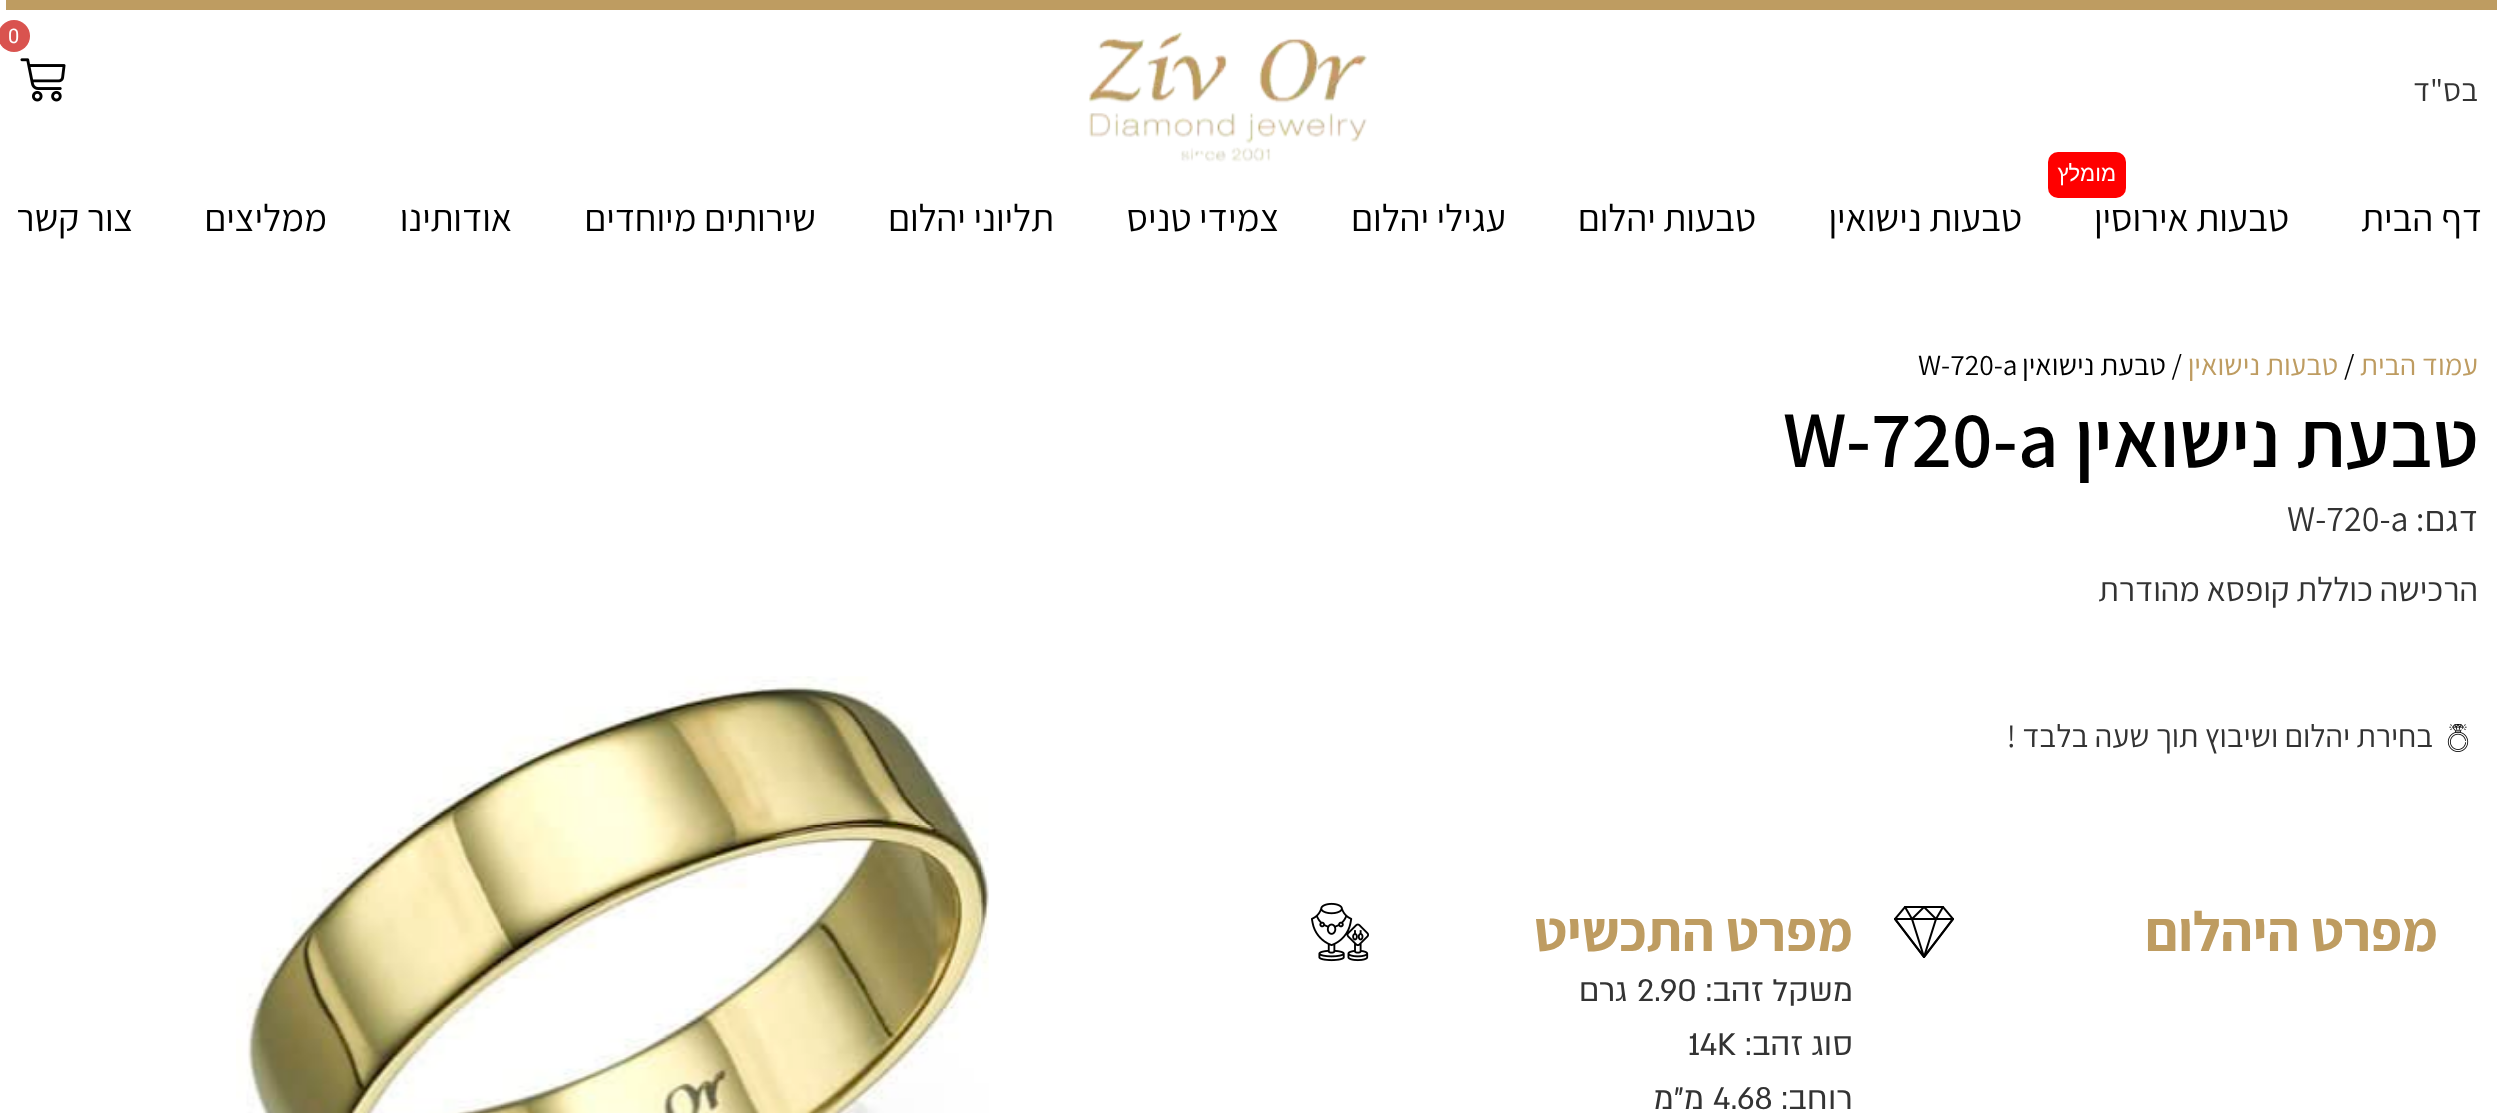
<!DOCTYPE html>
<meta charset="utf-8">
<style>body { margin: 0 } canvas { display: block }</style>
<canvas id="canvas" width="2497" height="1113"></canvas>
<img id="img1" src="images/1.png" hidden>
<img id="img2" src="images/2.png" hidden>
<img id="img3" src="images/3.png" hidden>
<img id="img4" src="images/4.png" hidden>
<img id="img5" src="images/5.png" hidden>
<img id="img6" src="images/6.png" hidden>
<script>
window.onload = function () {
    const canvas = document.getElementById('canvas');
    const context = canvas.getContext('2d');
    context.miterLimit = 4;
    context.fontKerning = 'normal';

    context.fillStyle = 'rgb(255, 255, 255)';
    context.fillRect(0, 0, 2497, 1113);
    context.fillStyle = 'rgb(190, 156, 97)';
    context.fillRect(6, 0, 2491, 10);
    context.drawImage(document.getElementById('img1'), 1088, 31, 279, 131);
    context.fillStyle = 'rgb(217, 83, 79)';
    context.beginPath();
    context.arc(14, 36, 16, 0, 2 * Math.PI);
    context.fill();
    context.drawImage(document.getElementById('img2'), 20, 58, 46, 44);
    context.fillStyle = 'rgb(255, 0, 0)';
    context.beginPath();
    context.roundRect(2048, 152, 78, 46, 10);
    context.fill();
    context.drawImage(document.getElementById('img3'), 2447, 724, 22, 28);
    context.drawImage(document.getElementById('img4'), 1894, 906, 60, 52);
    context.drawImage(document.getElementById('img5'), 1311, 902, 58, 60);
    context.drawImage(document.getElementById('img6'), 236, 676, 753, 437);
    context.direction = 'rtl';
    context.font = '32px Assistant';
    context.fillStyle = 'rgb(51, 51, 51)';
    context.fillText('בס"ד', 2478, 101);
    context.direction = 'ltr';
    context.font = '20px Roboto';
    context.fillStyle = 'rgb(255, 255, 255)';
    context.fillText('0', 8, 43);
    context.direction = 'rtl';
    context.font = '38px Assistant';
    context.fillStyle = 'rgb(0, 0, 0)';
    context.fillText('דף הבית', 2482, 231);
    context.font = '22px Liberation Sans';
    context.fillStyle = 'rgb(255, 255, 255)';
    context.fillText('מומלץ', 2116, 181);
    context.font = '38px Assistant';
    context.fillStyle = 'rgb(0, 0, 0)';
    context.fillText('טבעות אירוסין', 2289, 231);
    context.fillText('טבעות נישואין', 2022, 231);
    context.fillText('טבעות יהלום', 1756, 231);
    context.fillText('עגילי יהלום', 1506, 231);
    context.fillText('צמידי טניס', 1279, 231);
    context.fillText('תליוני יהלום', 1054, 231);
    context.fillText('שירותים מיוחדים', 816, 231);
    context.fillText('אודותינו', 512, 231);
    context.fillText('ממליצים', 327, 231);
    context.fillText('צור קשר', 133, 231);
    context.font = '29.5px Assistant';
    context.fillStyle = 'rgb(190, 156, 97)';
    context.fillText('עמוד הבית', 2478, 375);
    context.direction = 'ltr';
    context.fillStyle = 'rgb(0, 0, 0)';
    context.fillText('/', 2344, 375);
    context.direction = 'rtl';
    context.fillStyle = 'rgb(190, 156, 97)';
    context.fillText('טבעות נישואין', 2338, 375);
    context.fillStyle = 'rgb(0, 0, 0)';
    context.fillText('/ טבעת נישואין', 2182, 375);
    context.direction = 'ltr';
    context.fillText('W-720-a', 1918, 375);
    context.direction = 'rtl';
    context.font = '600 80px Assistant';
    context.fillText('טבעת נישואין', 2478, 467);
    context.direction = 'ltr';
    context.fillText('W-720-a', 1783, 467);
    context.direction = 'rtl';
    context.font = '36px Assistant';
    context.fillStyle = 'rgb(51, 51, 51)';
    context.fillText('דגם:', 2478, 531);
    context.direction = 'ltr';
    context.fillText('W-720-a', 2287, 531);
    context.direction = 'rtl';
    context.font = '34px Assistant';
    context.fillText('הרכישה כוללת קופסא מהודרת', 2478, 601);
    context.font = '32px Assistant';
    context.fillText('בחירת יהלום ושיבוץ תוך שעה בלבד !', 2433, 747);
    context.font = 'bold 56px Assistant';
    context.fillStyle = 'rgb(190, 156, 97)';
    context.fillText('מפרט היהלום', 2438, 951);
    context.fillText('מפרט התכשיט', 1853, 951);
    context.font = '36px "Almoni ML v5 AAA"';
    context.fillStyle = 'rgb(51, 51, 51)';
    context.fillText('משקל זהב:', 1853, 1001);
    context.direction = 'ltr';
    context.fillText('2.90', 1637, 1001);
    context.direction = 'rtl';
    context.fillText('גרם', 1627, 1001);
    context.fillText('סוג זהב:', 1853, 1055);
    context.direction = 'ltr';
    context.fillText('14K', 1688, 1055);
    context.direction = 'rtl';
    context.fillText('רוחב:', 1853, 1109);
    context.direction = 'ltr';
    context.fillText('4.68', 1713, 1109);
    context.direction = 'rtl';
    context.fillText('מ”מ', 1704, 1109);
};
</script>
